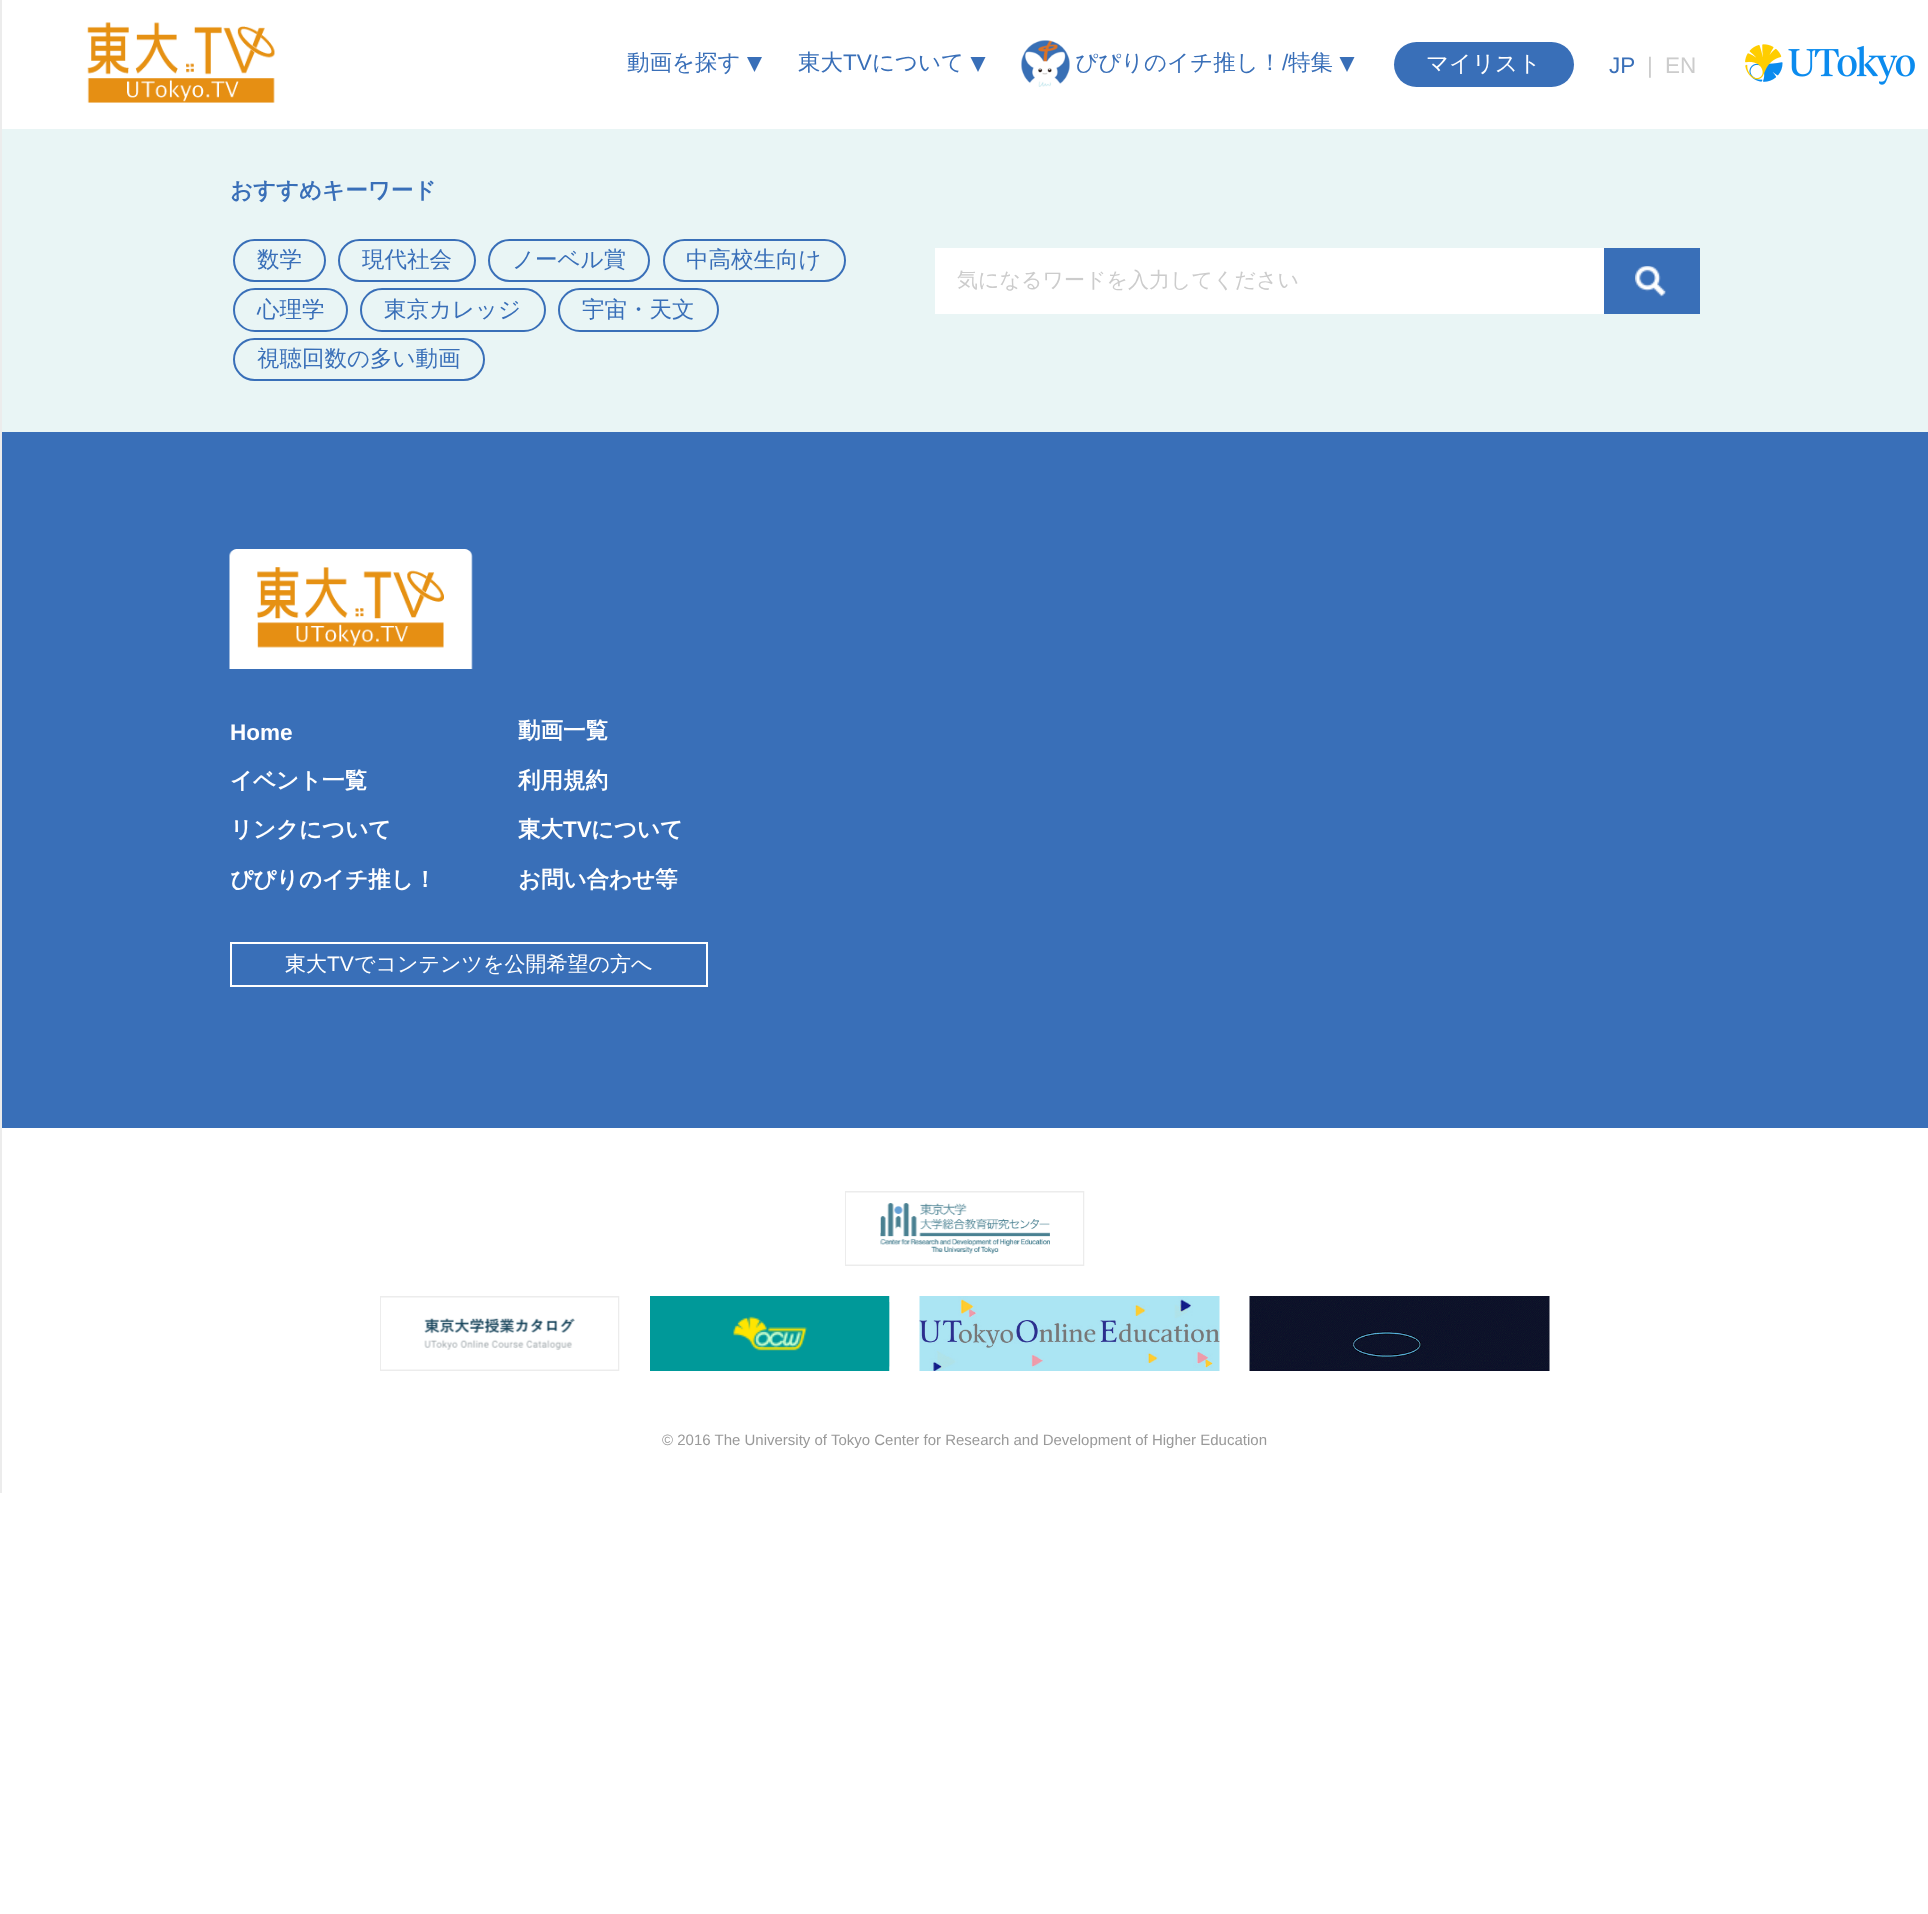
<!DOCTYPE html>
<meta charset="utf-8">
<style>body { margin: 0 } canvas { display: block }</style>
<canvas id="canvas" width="1928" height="1914"></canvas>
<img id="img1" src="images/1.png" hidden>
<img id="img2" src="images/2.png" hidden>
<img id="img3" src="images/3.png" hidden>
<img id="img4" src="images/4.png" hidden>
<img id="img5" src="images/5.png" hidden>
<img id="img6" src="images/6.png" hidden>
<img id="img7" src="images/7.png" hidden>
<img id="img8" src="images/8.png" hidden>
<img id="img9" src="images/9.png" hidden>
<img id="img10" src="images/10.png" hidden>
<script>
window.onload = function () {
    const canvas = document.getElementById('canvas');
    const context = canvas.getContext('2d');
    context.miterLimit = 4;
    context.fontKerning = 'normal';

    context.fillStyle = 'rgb(255, 255, 255)';
    context.fillRect(0, 0, 1928, 1914);
    context.fillStyle = 'rgb(236, 236, 236)';
    context.fillRect(0, 0, 2, 1493);
    context.drawImage(document.getElementById('img1'), 87, 22, 188, 81);
    context.fillStyle = 'rgb(57, 111, 184)';
    context.beginPath();
    context.moveTo(754.5, 72);
    context.lineTo(747, 57);
    context.lineTo(762, 57);
    context.closePath();
    context.fill();
    context.beginPath();
    context.moveTo(978, 72);
    context.lineTo(970.5, 57);
    context.lineTo(985.5, 57);
    context.closePath();
    context.fill();
    context.drawImage(document.getElementById('img2'), 1021, 40, 49, 47);
    context.beginPath();
    context.moveTo(1347, 72);
    context.lineTo(1339.5, 57);
    context.lineTo(1354.5, 57);
    context.closePath();
    context.fill();
    context.beginPath();
    context.roundRect(1394, 42, 180, 45, 22.5);
    context.fill();
    context.drawImage(document.getElementById('img3'), 1745, 44, 170, 41);
    context.fillStyle = 'rgb(233, 245, 245)';
    context.fillRect(2, 129, 1926, 303);
    context.beginPath();
    context.roundRect(234, 240, 91, 41, 20.5);
    context.strokeStyle = 'rgb(57, 111, 184)';
    context.lineWidth = 2;
    context.stroke();
    context.beginPath();
    context.roundRect(339, 240, 136, 41, 20.5);
    context.stroke();
    context.beginPath();
    context.roundRect(489, 240, 160, 41, 20.5);
    context.stroke();
    context.beginPath();
    context.roundRect(664, 240, 181, 41, 20.5);
    context.stroke();
    context.beginPath();
    context.roundRect(234, 289, 113, 42, 21);
    context.stroke();
    context.beginPath();
    context.roundRect(361, 289, 184, 42, 21);
    context.stroke();
    context.beginPath();
    context.roundRect(559, 289, 159, 42, 21);
    context.stroke();
    context.beginPath();
    context.roundRect(234, 339, 250, 41, 20.5);
    context.stroke();
    context.fillStyle = 'rgb(255, 255, 255)';
    context.fillRect(935, 248, 669, 66);
    context.fillStyle = 'rgb(57, 111, 184)';
    context.fillRect(1604, 248, 96, 66);
    context.drawImage(document.getElementById('img4'), 1635, 266, 31, 31);
    context.fillRect(2, 432, 1926, 696);
    context.drawImage(document.getElementById('img5'), 229, 549, 244, 120);
    context.strokeStyle = 'rgb(255, 255, 255)';
    context.strokeRect(231, 943, 476, 43);
    context.drawImage(document.getElementById('img6'), 845, 1191, 240, 75);
    context.drawImage(document.getElementById('img7'), 380, 1296, 240, 75);
    context.drawImage(document.getElementById('img8'), 650, 1296, 240, 75);
    context.drawImage(document.getElementById('img9'), 919, 1296, 301, 75);
    context.drawImage(document.getElementById('img10'), 1249, 1296, 301, 75);
    context.font = '500 22.5px WenQuanYi Zen Hei';
    context.fillText('動画を探す', 627, 70);
    context.fillText('東大', 798, 70);
    context.font = '22.5px Liberation Sans';
    context.fillText('TV', 843, 70);
    context.font = '500 22.5px WenQuanYi Zen Hei';
    context.fillText('について', 872, 70);
    context.fillText('ぴぴりのイチ推し！', 1075, 70);
    context.font = '22.5px Liberation Sans';
    context.fillText('/', 1282, 70);
    context.font = '500 22.5px WenQuanYi Zen Hei';
    context.fillText('特集', 1288, 70);
    context.fillStyle = 'rgb(255, 255, 255)';
    context.fillText('マイリスト', 1426, 71);
    context.font = '22.5px Liberation Sans';
    context.fillStyle = 'rgb(57, 111, 184)';
    context.fillText('JP', 1609, 73);
    context.fillStyle = 'rgb(204, 204, 204)';
    context.fillText('|', 1647, 73);
    context.fillText('EN', 1665, 73);
    context.font = 'bold 22.5px WenQuanYi Zen Hei';
    context.fillStyle = 'rgb(57, 111, 184)';
    context.fillText('おすすめキーワード', 230, 198);
    context.font = '500 22.5px WenQuanYi Zen Hei';
    context.fillText('数学', 257, 267);
    context.fillText('現代社会', 362, 267);
    context.fillText('ノーベル賞', 512, 267);
    context.fillText('中高校生向け', 686, 267);
    context.fillText('心理学', 257, 317);
    context.fillText('東京カレッジ', 384, 317);
    context.fillText('宇宙・天文', 582, 317);
    context.fillText('視聴回数の多い動画', 257, 366);
    context.font = '500 21px WenQuanYi Zen Hei';
    context.fillStyle = 'rgb(204, 204, 204)';
    context.fillText('気になるワードを入力してください', 957, 287);
    context.font = 'bold 22.5px Liberation Sans';
    context.fillStyle = 'rgb(255, 255, 255)';
    context.fillText('Home', 230, 740);
    context.font = 'bold 22.5px WenQuanYi Zen Hei';
    context.fillText('動画一覧', 518, 738);
    context.fillText('イベント一覧', 230, 788);
    context.fillText('利用規約', 518, 788);
    context.fillText('リンクについて', 230, 837);
    context.fillText('東大', 518, 837);
    context.font = 'bold 22.5px Liberation Sans';
    context.fillText('TV', 563, 837);
    context.font = 'bold 22.5px WenQuanYi Zen Hei';
    context.fillText('について', 591, 837);
    context.fillText('ぴぴりのイチ推し！', 230, 887);
    context.fillText('お問い合わせ等', 518, 887);
    context.font = '500 21px WenQuanYi Zen Hei';
    context.fillText('東大', 285, 971);
    context.font = '21px Liberation Sans';
    context.fillText('TV', 327, 971);
    context.font = '500 21px WenQuanYi Zen Hei';
    context.fillText('でコンテンツを公開希望の方へ', 354, 971);
    context.font = '15px Liberation Sans';
    context.fillStyle = 'rgb(153, 153, 153)';
    context.fillText('© 2016 The University of Tokyo Center for Research and Development of Higher Education', 662, 1445);
};
</script>
